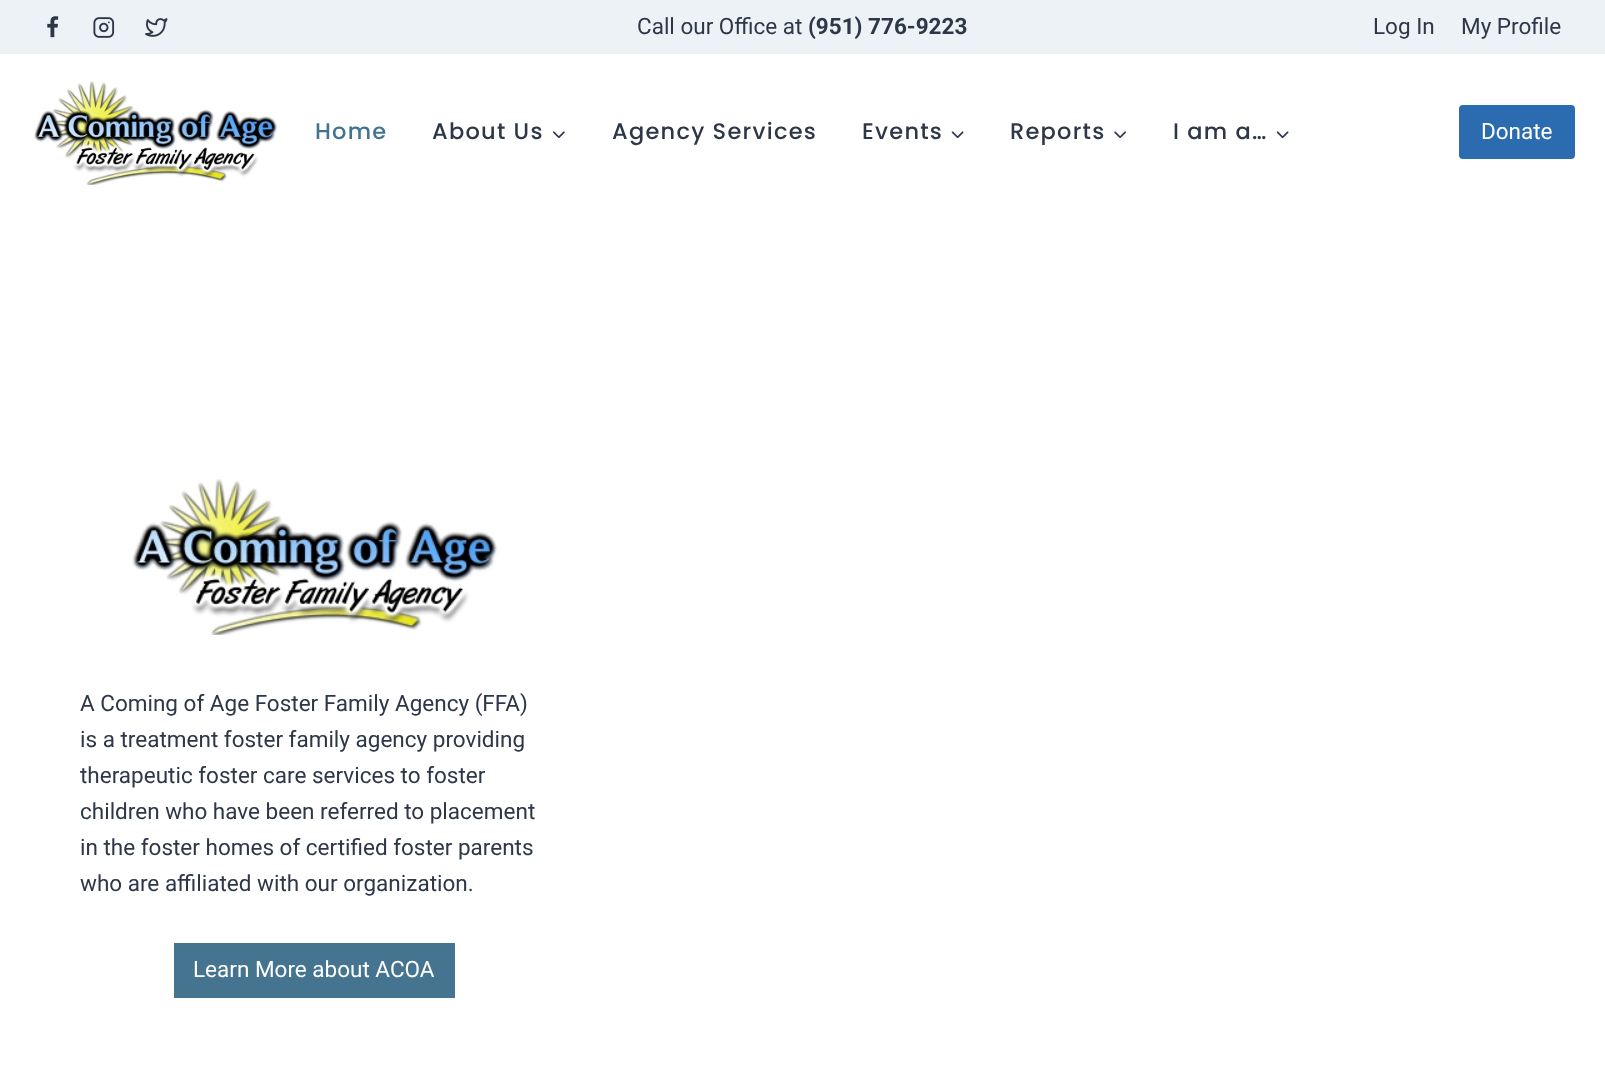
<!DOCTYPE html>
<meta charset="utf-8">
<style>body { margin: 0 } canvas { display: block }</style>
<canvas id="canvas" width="1605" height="1091"></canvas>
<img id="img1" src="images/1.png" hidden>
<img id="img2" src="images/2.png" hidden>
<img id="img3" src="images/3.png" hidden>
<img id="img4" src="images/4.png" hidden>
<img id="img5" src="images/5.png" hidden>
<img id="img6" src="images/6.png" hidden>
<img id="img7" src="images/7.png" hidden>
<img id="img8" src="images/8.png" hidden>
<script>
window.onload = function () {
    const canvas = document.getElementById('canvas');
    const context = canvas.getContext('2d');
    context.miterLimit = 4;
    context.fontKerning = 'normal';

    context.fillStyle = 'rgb(255, 255, 255)';
    context.fillRect(0, 0, 1605, 1091);
    context.fillStyle = 'rgb(237, 242, 247)';
    context.fillRect(0, 0, 1605, 54);
    context.drawImage(document.getElementById('img1'), 47, 16, 12, 22);
    context.drawImage(document.getElementById('img2'), 93, 17, 22, 21);
    context.drawImage(document.getElementById('img3'), 145, 18, 23, 19);
    context.drawImage(document.getElementById('img4'), 34, 81, 244, 104);
    context.drawImage(document.getElementById('img5'), 553, 131, 12, 8);
    context.drawImage(document.getElementById('img6'), 951, 131, 13, 8);
    context.drawImage(document.getElementById('img7'), 1114, 131, 12, 8);
    context.drawImage(document.getElementById('img6'), 1276, 131, 13, 8);
    context.fillStyle = 'rgb(43, 108, 176)';
    context.beginPath();
    context.roundRect(1459, 105, 116, 54, 4);
    context.fill();
    context.drawImage(document.getElementById('img8'), 132, 479, 366, 156);
    context.fillStyle = 'rgb(68, 116, 144)';
    context.fillRect(174, 943, 281, 55);
    context.font = '22.5px Roboto';
    context.fillStyle = 'rgb(45, 55, 72)';
    context.fillText('Call our Office at', 637, 34);
    context.font = 'bold 22.5px Roboto';
    context.fillText('(951) 776-9223', 808, 34);
    context.font = '22.5px Roboto';
    context.fillText('Log In', 1373, 34);
    context.fillText('My Profile', 1461, 34);
    context.letterSpacing = '1.25px';
    context.font = '500 22.5px Poppins';
    context.fillStyle = 'rgb(67, 116, 143)';
    context.fillText('Home', 315, 139);
    context.fillStyle = 'rgb(45, 55, 72)';
    context.fillText('About Us', 432, 139);
    context.fillText('Agency Services', 612, 139);
    context.fillText('Events', 862, 139);
    context.fillText('Reports', 1010, 139);
    context.fillText('I am a…', 1173, 139);
    context.letterSpacing = '0px';
    context.font = '22.5px Roboto';
    context.fillStyle = 'rgb(255, 255, 255)';
    context.fillText('Donate', 1481, 139);
    context.fillStyle = 'rgb(45, 55, 72)';
    context.fillText('A Coming of Age Foster Family Agency (FFA)', 80, 711);
    context.fillText('is a treatment foster family agency providing', 80, 747);
    context.fillText('therapeutic foster care services to foster', 80, 783);
    context.fillText('children who have been referred to placement', 80, 819);
    context.fillText('in the foster homes of certified foster parents', 80, 855);
    context.fillText('who are affiliated with our organization.', 80, 891);
    context.fillStyle = 'rgb(255, 255, 255)';
    context.fillText('Learn More about ACOA', 193, 977);
};
</script>
